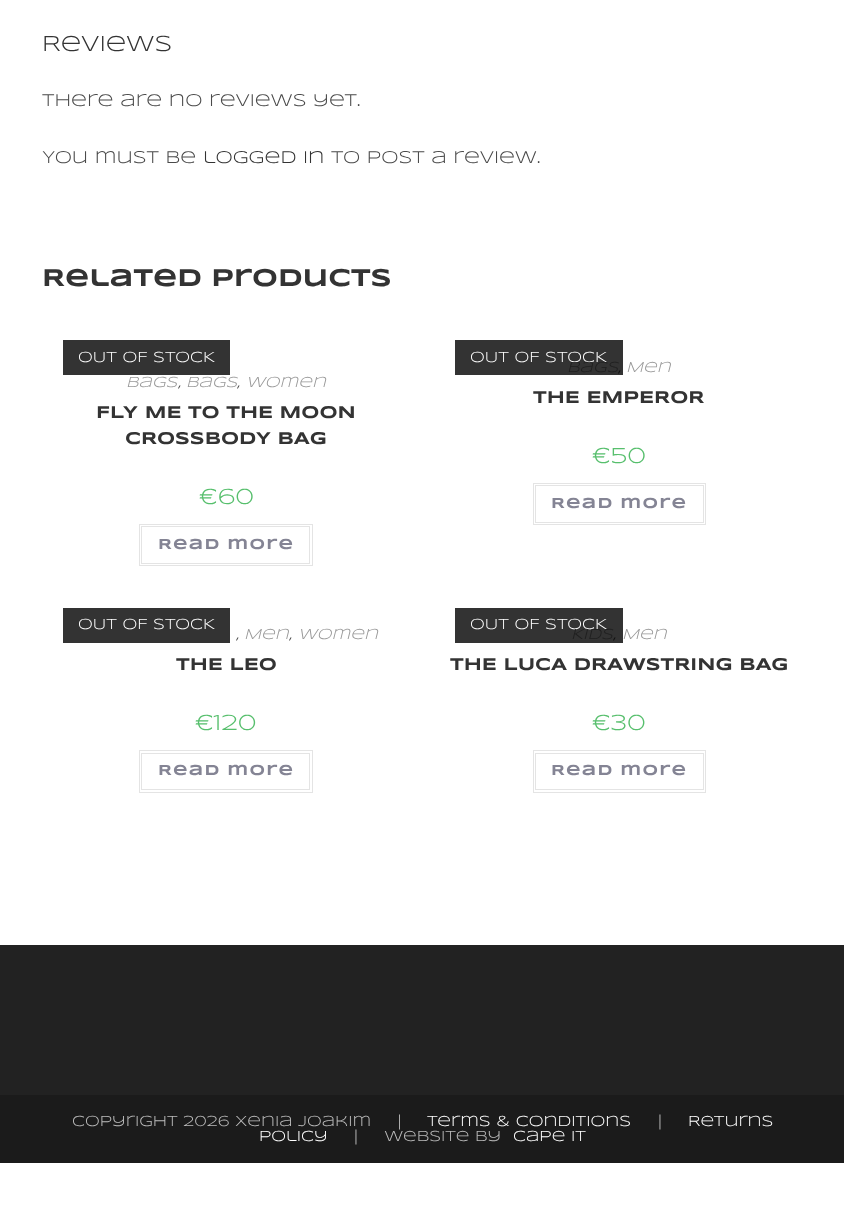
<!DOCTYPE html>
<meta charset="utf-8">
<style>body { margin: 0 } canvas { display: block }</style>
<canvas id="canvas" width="844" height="1218"></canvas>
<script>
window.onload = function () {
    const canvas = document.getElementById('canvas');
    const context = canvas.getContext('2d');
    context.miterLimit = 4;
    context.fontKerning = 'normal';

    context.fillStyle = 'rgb(255, 255, 255)';
    context.fillRect(0, 0, 844, 1218);
    context.fillStyle = 'rgb(51, 51, 51)';
    context.fillRect(455, 608, 168, 35);
    context.fillRect(455, 340, 168, 35);
    context.fillRect(63, 340, 167, 35);
    context.strokeStyle = 'rgb(228, 228, 228)';
    context.strokeRect(139.5, 524.5, 173, 41);
    context.strokeRect(141.5, 526.5, 168, 37);
    context.strokeRect(533.5, 483.5, 172, 41);
    context.strokeRect(535.5, 485.5, 168, 37);
    context.fillStyle = 'rgba(0, 0, 0, 0.8)';
    context.fillRect(63, 608, 167, 35);
    context.strokeRect(139.5, 750.5, 173, 42);
    context.strokeRect(141.5, 753.5, 168, 36);
    context.strokeRect(533.5, 750.5, 172, 42);
    context.strokeRect(535.5, 753.5, 168, 36);
    context.fillStyle = 'rgb(34, 34, 34)';
    context.fillRect(0, 945, 844, 150);
    context.fillStyle = 'rgb(27, 27, 27)';
    context.fillRect(0, 1095, 844, 68);
    context.font = '22.5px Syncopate';
    context.fillStyle = 'rgb(51, 51, 51)';
    context.fillText('Reviews', 42, 51);
    context.font = '17.5px Syncopate';
    context.fillStyle = 'rgb(74, 74, 74)';
    context.fillText('There are no reviews yet.', 42, 106);
    context.fillText('You must be', 42, 163);
    context.fillStyle = 'rgb(51, 51, 51)';
    context.fillText('logged in', 203, 163);
    context.fillStyle = 'rgb(74, 74, 74)';
    context.fillText('to post a review.', 331, 163);
    context.font = 'bold 25px Syncopate';
    context.fillStyle = 'rgb(51, 51, 51)';
    context.fillText('Related products', 42, 286);
    context.font = '15px Syncopate';
    context.fillStyle = 'rgb(255, 255, 255)';
    context.fillText('OUT OF STOCK', 78, 362);
    context.font = 'italic 15px Syncopate';
    context.fillStyle = 'rgb(153, 153, 153)';
    context.fillText('Bags', 126, 387);
    context.fillText('Bags', 186, 387);
    context.fillText('Women', 246, 387);
    context.fillStyle = 'rgb(74, 74, 74)';
    context.fillText(',', 178, 387);
    context.fillText(',', 237, 387);
    context.font = 'bold 17.5px Syncopate';
    context.fillStyle = 'rgb(51, 51, 51)';
    context.fillText('FLY ME TO THE MOON', 96, 418);
    context.fillText('CROSSBODY BAG', 125, 444);
    context.font = '22.5px Syncopate';
    context.fillStyle = 'rgb(87, 191, 109)';
    context.fillText('€60', 199, 504);
    context.letterSpacing = '1.25px';
    context.font = 'bold 15px Syncopate';
    context.fillStyle = 'rgb(132, 132, 148)';
    context.fillText('Read more', 158, 549);
    context.letterSpacing = '0px';
    context.font = '15px Syncopate';
    context.fillStyle = 'rgb(255, 255, 255)';
    context.fillText('OUT OF STOCK', 470, 362);
    context.font = 'italic 15px Syncopate';
    context.fillStyle = 'rgb(31, 31, 31)';
    context.fillText('Bags', 567, 372);
    context.fillStyle = 'rgb(153, 153, 153)';
    context.fillText('Men', 626, 372);
    context.fillStyle = 'rgb(15, 15, 15)';
    context.fillText(',', 618, 372);
    context.font = 'bold 17.5px Syncopate';
    context.fillStyle = 'rgb(51, 51, 51)';
    context.fillText('THE EMPEROR', 533, 403);
    context.font = '22.5px Syncopate';
    context.fillStyle = 'rgb(87, 191, 109)';
    context.fillText('€50', 592, 463);
    context.letterSpacing = '1.25px';
    context.font = 'bold 15px Syncopate';
    context.fillStyle = 'rgb(132, 132, 148)';
    context.fillText('Read more', 551, 508);
    context.letterSpacing = '0px';
    context.font = '15px Syncopate';
    context.fillStyle = 'rgb(255, 255, 255)';
    context.fillText('OUT OF STOCK', 78, 629);
    context.font = 'italic 15px Syncopate';
    context.fillStyle = 'rgb(74, 74, 74)';
    context.fillText(',', 236, 639);
    context.fillStyle = 'rgb(153, 153, 153)';
    context.fillText('Men', 244, 639);
    context.fillStyle = 'rgb(74, 74, 74)';
    context.fillText(',', 289, 639);
    context.fillStyle = 'rgb(153, 153, 153)';
    context.fillText('Women', 298, 639);
    context.font = 'bold 17.5px Syncopate';
    context.fillStyle = 'rgb(51, 51, 51)';
    context.fillText('THE LEO', 176, 670);
    context.font = '22.5px Syncopate';
    context.fillStyle = 'rgb(87, 191, 109)';
    context.fillText('€120', 195, 730);
    context.letterSpacing = '1.25px';
    context.font = 'bold 15px Syncopate';
    context.fillStyle = 'rgb(132, 132, 148)';
    context.fillText('Read more', 158, 775);
    context.letterSpacing = '0px';
    context.font = '15px Syncopate';
    context.fillStyle = 'rgb(255, 255, 255)';
    context.fillText('OUT OF STOCK', 470, 629);
    context.font = 'italic 15px Syncopate';
    context.fillStyle = 'rgb(31, 31, 31)';
    context.fillText('Kids', 571, 639);
    context.fillStyle = 'rgb(15, 15, 15)';
    context.fillText(',', 613, 639);
    context.fillStyle = 'rgb(153, 153, 153)';
    context.fillText('Men', 622, 639);
    context.font = 'bold 17.5px Syncopate';
    context.fillStyle = 'rgb(51, 51, 51)';
    context.fillText('THE LUCA DRAWSTRING BAG', 450, 670);
    context.font = '22.5px Syncopate';
    context.fillStyle = 'rgb(87, 191, 109)';
    context.fillText('€30', 592, 730);
    context.letterSpacing = '1.25px';
    context.font = 'bold 15px Syncopate';
    context.fillStyle = 'rgb(132, 132, 148)';
    context.fillText('Read more', 551, 775);
    context.letterSpacing = '0px';
    context.font = '15px Syncopate';
    context.fillStyle = 'rgb(188, 188, 188)';
    context.fillText('Copyright 2026 Xenia Joakim   |', 72, 1126);
    context.fillStyle = 'rgb(255, 255, 255)';
    context.fillText('Terms & Conditions', 427, 1126);
    context.fillStyle = 'rgb(188, 188, 188)';
    context.fillText('|', 658, 1126);
    context.fillStyle = 'rgb(255, 255, 255)';
    context.fillText('Returns', 688, 1126);
    context.fillText('Policy', 259, 1141);
    context.fillStyle = 'rgb(188, 188, 188)';
    context.fillText('|   Website by', 354, 1141);
    context.fillStyle = 'rgb(255, 255, 255)';
    context.fillText('Cape IT', 513, 1141);
};
</script>
